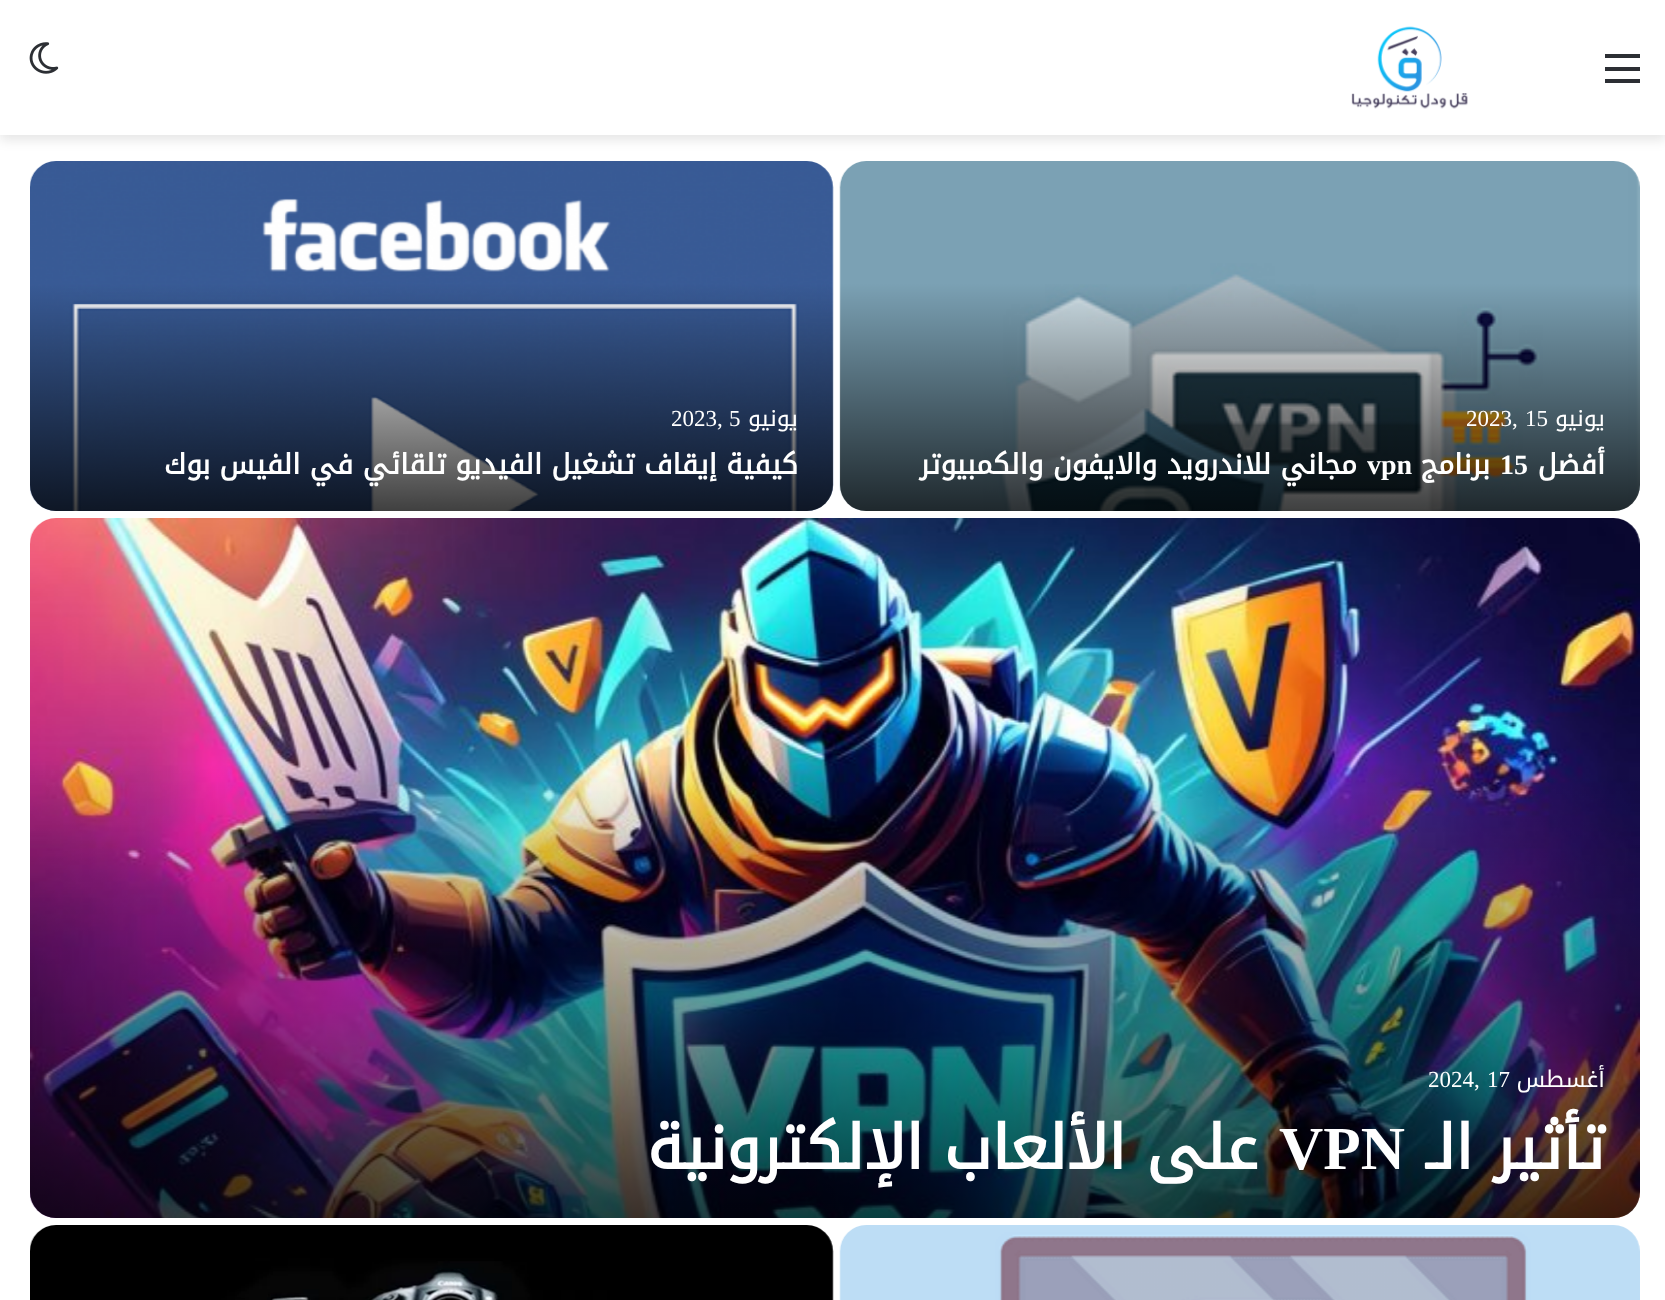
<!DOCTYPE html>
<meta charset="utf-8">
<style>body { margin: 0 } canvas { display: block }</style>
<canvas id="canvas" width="1665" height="1300"></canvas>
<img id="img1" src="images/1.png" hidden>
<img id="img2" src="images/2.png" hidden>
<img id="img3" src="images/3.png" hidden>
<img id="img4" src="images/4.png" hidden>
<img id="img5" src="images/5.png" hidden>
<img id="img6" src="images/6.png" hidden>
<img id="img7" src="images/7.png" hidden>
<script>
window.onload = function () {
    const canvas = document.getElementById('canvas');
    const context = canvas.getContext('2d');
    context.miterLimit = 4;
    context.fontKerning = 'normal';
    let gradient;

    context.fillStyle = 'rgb(255, 255, 255)';
    context.fillRect(0, 0, 1665, 1300);
    context.fillStyle = 'rgba(0, 0, 0, 0.1)';
    context.filter = 'blur(6px)';
    context.beginPath();
    context.rect(0, 5, 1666, 135);
    context.fill();
    context.filter = 'none';
    context.fillStyle = 'rgb(255, 255, 255)';
    context.fillRect(0, 0, 1665, 135);
    context.fillStyle = 'rgb(44, 47, 52)';
    context.fillRect(1605, 67, 35, 4);
    context.fillRect(1605, 54, 35, 4);
    context.fillRect(1605, 79, 35, 4);
    context.drawImage(document.getElementById('img1'), 1351, 26, 117, 83);
    context.drawImage(document.getElementById('img2'), 29, 42, 30, 32);
    context.drawImage(document.getElementById('img3'), 839, 161, 801, 350);
    gradient = context.createLinearGradient(1240, 283, 1240, 511);
    gradient.addColorStop(0, 'rgba(0, 0, 0, 0)');
    gradient.addColorStop(1, 'rgba(0, 0, 0, 0.75)');
    context.fillStyle = gradient;
    context.beginPath();
    context.roundRect(840, 284, 800, 227, [0, 0, 26, 26]);
    context.fill();
    context.drawImage(document.getElementById('img4'), 30, 161, 804, 350);
    gradient = context.createLinearGradient(431, 283, 431, 511);
    gradient.addColorStop(0, 'rgba(0, 0, 0, 0)');
    gradient.addColorStop(1, 'rgba(0, 0, 0, 0.75)');
    context.fillStyle = gradient;
    context.beginPath();
    context.roundRect(30, 284, 803, 227, [0, 0, 26, 26]);
    context.fill();
    context.drawImage(document.getElementById('img5'), 30, 518, 1610, 700);
    gradient = context.createLinearGradient(835, 763, 835, 1218);
    gradient.addColorStop(0, 'rgba(0, 0, 0, 0)');
    gradient.addColorStop(1, 'rgba(0, 0, 0, 0.75)');
    context.fillStyle = gradient;
    context.beginPath();
    context.roundRect(30, 763, 1610, 455, [0, 0, 26, 26]);
    context.fill();
    context.drawImage(document.getElementById('img6'), 839, 1225, 801, 75);
    context.drawImage(document.getElementById('img7'), 30, 1225, 804, 75);
    context.direction = 'rtl';
    context.font = '23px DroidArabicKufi';
    context.fillStyle = 'rgb(255, 255, 255)';
    context.fillText('يونيو', 1605, 426);
    context.direction = 'ltr';
    context.font = '23px Liberation Serif';
    context.fillText('15', 1525, 426);
    context.fillText('2023,', 1466, 426);
    context.direction = 'rtl';
    context.font = 'bold 28px DroidArabicKufi';
    context.fillText('أفضل', 1605, 474);
    context.direction = 'ltr';
    context.font = 'bold 28px Liberation Serif';
    context.fillText('15', 1500, 474);
    context.direction = 'rtl';
    context.font = 'bold 28px DroidArabicKufi';
    context.fillText('برنامج', 1490, 474);
    context.direction = 'ltr';
    context.font = 'bold 28px Liberation Serif';
    context.fillText('vpn', 1367, 474);
    context.direction = 'rtl';
    context.font = 'bold 28px DroidArabicKufi';
    context.fillText('مجاني للاندرويد والايفون والكمبيوتر', 1357, 474);
    context.font = '23px DroidArabicKufi';
    context.fillText('يونيو', 798, 426);
    context.direction = 'ltr';
    context.font = '23px Liberation Serif';
    context.fillText('5', 729, 426);
    context.fillText('2023,', 671, 426);
    context.direction = 'rtl';
    context.font = 'bold 28px DroidArabicKufi';
    context.fillText('كيفية إيقاف تشغيل الفيديو تلقائي في الفيس بوك', 798, 474);
    context.font = '23px DroidArabicKufi';
    context.fillText('أغسطس', 1605, 1087);
    context.direction = 'ltr';
    context.font = '23px Liberation Serif';
    context.fillText('17', 1487, 1087);
    context.fillText('2024,', 1428, 1087);
    context.direction = 'rtl';
    context.font = 'bold 61.25px DroidArabicKufi';
    context.fillText('تأثير الـ', 1605, 1169);
    context.direction = 'ltr';
    context.font = 'bold 61.25px Liberation Serif';
    context.fillText('VPN', 1279, 1169);
    context.direction = 'rtl';
    context.font = 'bold 61.25px DroidArabicKufi';
    context.fillText('على الألعاب الإلكترونية', 1258, 1169);
};
</script>
